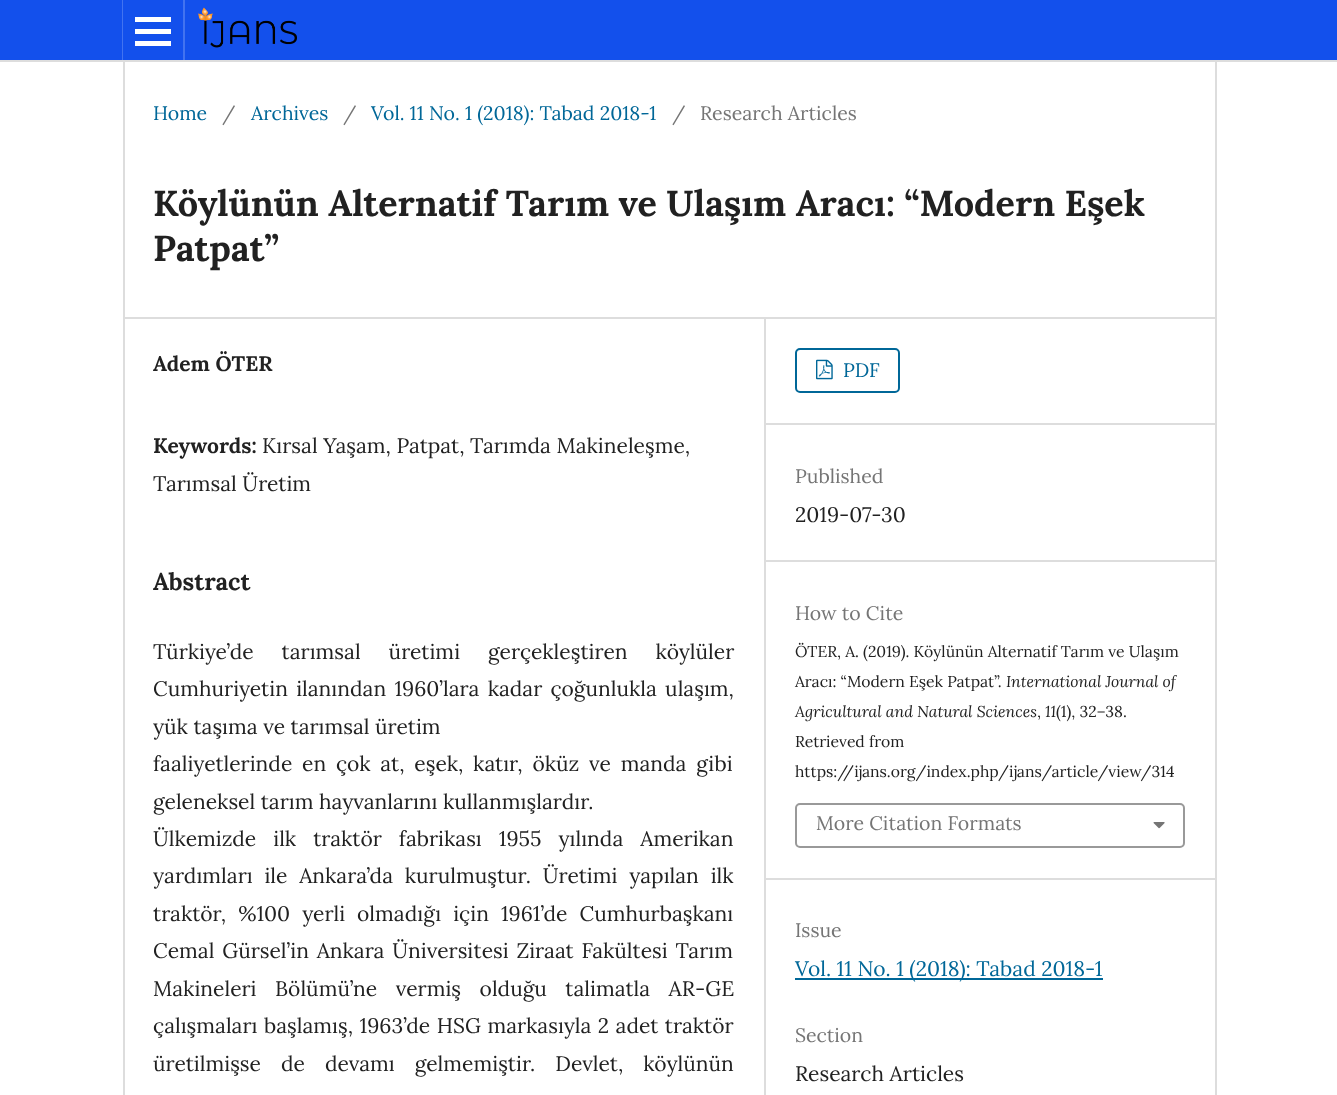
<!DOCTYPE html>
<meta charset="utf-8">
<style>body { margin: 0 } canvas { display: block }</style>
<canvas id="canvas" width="1337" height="1095"></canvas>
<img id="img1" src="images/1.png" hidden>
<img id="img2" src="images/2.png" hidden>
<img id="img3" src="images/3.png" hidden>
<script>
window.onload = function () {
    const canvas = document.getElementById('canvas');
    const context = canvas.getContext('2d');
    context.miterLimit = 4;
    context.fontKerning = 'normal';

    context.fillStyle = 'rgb(255, 255, 255)';
    context.fillRect(0, 0, 1337, 1095);
    context.fillStyle = 'rgb(19, 80, 236)';
    context.fillRect(0, 0, 1337, 60);
    context.fillStyle = 'rgb(221, 221, 221)';
    context.fillRect(0, 60, 1337, 2);
    context.fillStyle = 'rgb(66, 115, 240)';
    context.fillRect(122, 0, 1, 60);
    context.fillRect(183, 0, 2, 60);
    context.fillStyle = 'rgb(255, 255, 255)';
    context.fillRect(135, 41, 36, 5);
    context.fillRect(135, 17, 36, 5);
    context.fillRect(135, 29, 36, 5);
    context.drawImage(document.getElementById('img1'), 198, 7, 99, 41);
    context.fillStyle = 'rgb(221, 221, 221)';
    context.fillRect(123, 317, 1092, 2);
    context.fillRect(123, 62, 2, 1033);
    context.fillRect(764, 318, 2, 777);
    context.fillRect(765, 423, 450, 2);
    context.beginPath();
    context.roundRect(796, 349, 103, 43, 4);
    context.strokeStyle = 'rgb(0, 103, 152)';
    context.lineWidth = 2;
    context.stroke();
    context.drawImage(document.getElementById('img2'), 816, 359, 17, 21);
    context.fillRect(765, 560, 450, 2);
    context.fillRect(765, 878, 450, 2);
    context.beginPath();
    context.roundRect(796, 804, 388, 43, 4);
    context.strokeStyle = 'rgb(153, 153, 153)';
    context.stroke();
    context.drawImage(document.getElementById('img3'), 1153, 822, 12, 7);
    context.fillStyle = 'rgb(0, 103, 152)';
    context.fillRect(795, 978, 308, 2);
    context.fillStyle = 'rgb(221, 221, 221)';
    context.fillRect(1215, 62, 2, 1033);
    context.font = '19.5px Lora';
    context.fillStyle = 'rgb(0, 103, 152)';
    context.fillText('Home', 153, 120);
    context.fillStyle = 'rgb(117, 117, 117)';
    context.fillText('/', 222, 120);
    context.fillStyle = 'rgb(0, 103, 152)';
    context.fillText('Archives', 251, 120);
    context.fillStyle = 'rgb(117, 117, 117)';
    context.fillText('/', 343, 120);
    context.fillStyle = 'rgb(0, 103, 152)';
    context.fillText('Vol. 11 No. 1 (2018): Tabad 2018-1', 371, 120);
    context.fillStyle = 'rgb(117, 117, 117)';
    context.fillText('/', 672, 120);
    context.fillText('Research Articles', 700, 120);
    context.font = 'bold 36px Lora';
    context.fillStyle = 'rgb(33, 33, 33)';
    context.fillText('Köylünün Alternatif Tarım ve Ulaşım Aracı: “Modern Eşek', 153, 216);
    context.fillText('Patpat”', 153, 261);
    context.font = 'bold 21px Lora';
    context.fillText('Adem ÖTER', 153, 371);
    context.fillText('Keywords:', 153, 453);
    context.font = '21px Lora';
    context.fillText('Kırsal Yaşam, Patpat, Tarımda Makineleşme,', 262, 453);
    context.fillText('Tarımsal Üretim', 153, 491);
    context.font = 'bold 24px Lora';
    context.fillText('Abstract', 153, 590);
    context.wordSpacing = '22.5px';
    context.font = '21px Lora';
    context.fillText('Türkiye’de tarımsal üretimi gerçekleştiren köylüler', 153, 659);
    context.wordSpacing = '2.75px';
    context.fillText('Cumhuriyetin ilanından 1960’lara kadar çoğunlukla ulaşım,', 153, 696);
    context.wordSpacing = '0px';
    context.fillText('yük taşıma ve tarımsal üretim', 153, 734);
    context.wordSpacing = '4.25px';
    context.fillText('faaliyetlerinde en çok at, eşek, katır, öküz ve manda gibi', 153, 771);
    context.wordSpacing = '0px';
    context.fillText('geleneksel tarım hayvanlarını kullanmışlardır.', 153, 809);
    context.wordSpacing = '11.5px';
    context.fillText('Ülkemizde ilk traktör fabrikası 1955 yılında Amerikan', 153, 846);
    context.wordSpacing = '6.25px';
    context.fillText('yardımları ile Ankara’da kurulmuştur. Üretimi yapılan ilk', 153, 883);
    context.wordSpacing = '6.5px';
    context.fillText('traktör, %100 yerli olmadığı için 1961’de Cumhurbaşkanı', 153, 921);
    context.wordSpacing = '2.25px';
    context.fillText('Cemal Gürsel’in Ankara Üniversitesi Ziraat Fakültesi Tarım', 153, 958);
    context.wordSpacing = '13px';
    context.fillText('Makineleri Bölümü’ne vermiş olduğu talimatla AR-GE', 153, 996);
    context.wordSpacing = '1px';
    context.fillText('çalışmaları başlamış, 1963’de HSG markasıyla 2 adet traktör', 153, 1033);
    context.wordSpacing = '14.5px';
    context.fillText('üretilmişse de devamı gelmemiştir. Devlet, köylünün', 153, 1071);
    context.wordSpacing = '0px';
    context.font = '19.5px Lora';
    context.fillStyle = 'rgb(0, 103, 152)';
    context.fillText('PDF', 843, 377);
    context.fillStyle = 'rgb(117, 117, 117)';
    context.fillText('Published', 795, 483);
    context.font = '21px Lora';
    context.fillStyle = 'rgb(33, 33, 33)';
    context.fillText('2019-07-30', 795, 522);
    context.font = '19.5px Lora';
    context.fillStyle = 'rgb(117, 117, 117)';
    context.fillText('How to Cite', 795, 620);
    context.font = '15.75px Lora';
    context.fillStyle = 'rgb(33, 33, 33)';
    context.fillText('ÖTER, A. (2019). Köylünün Alternatif Tarım ve Ulaşım', 795, 657);
    context.fillText('Aracı: “Modern Eşek Patpat”.', 795, 687);
    context.font = 'italic 15.75px Lora';
    context.fillText('International Journal of', 1006, 687);
    context.fillText('Agricultural and Natural Sciences', 795, 717);
    context.font = '15.75px Lora';
    context.fillText(',', 1037, 717);
    context.font = 'italic 15.75px Lora';
    context.fillText('11', 1045, 717);
    context.font = '15.75px Lora';
    context.fillText('(1), 32–38.', 1056, 717);
    context.fillText('Retrieved from', 795, 747);
    context.fillText('https://ijans.org/index.php/ijans/article/view/314', 795, 777);
    context.font = '19.5px Lora';
    context.fillStyle = 'rgb(117, 117, 117)';
    context.fillText('More Citation Formats', 816, 830);
    context.fillText('Issue', 795, 937);
    context.font = '21px Lora';
    context.fillStyle = 'rgb(0, 103, 152)';
    context.fillText('Vol. 11 No. 1 (2018): Tabad 2018-1', 795, 976);
    context.font = '19.5px Lora';
    context.fillStyle = 'rgb(117, 117, 117)';
    context.fillText('Section', 795, 1042);
    context.font = '21px Lora';
    context.fillStyle = 'rgb(33, 33, 33)';
    context.fillText('Research Articles', 795, 1081);
};
</script>
